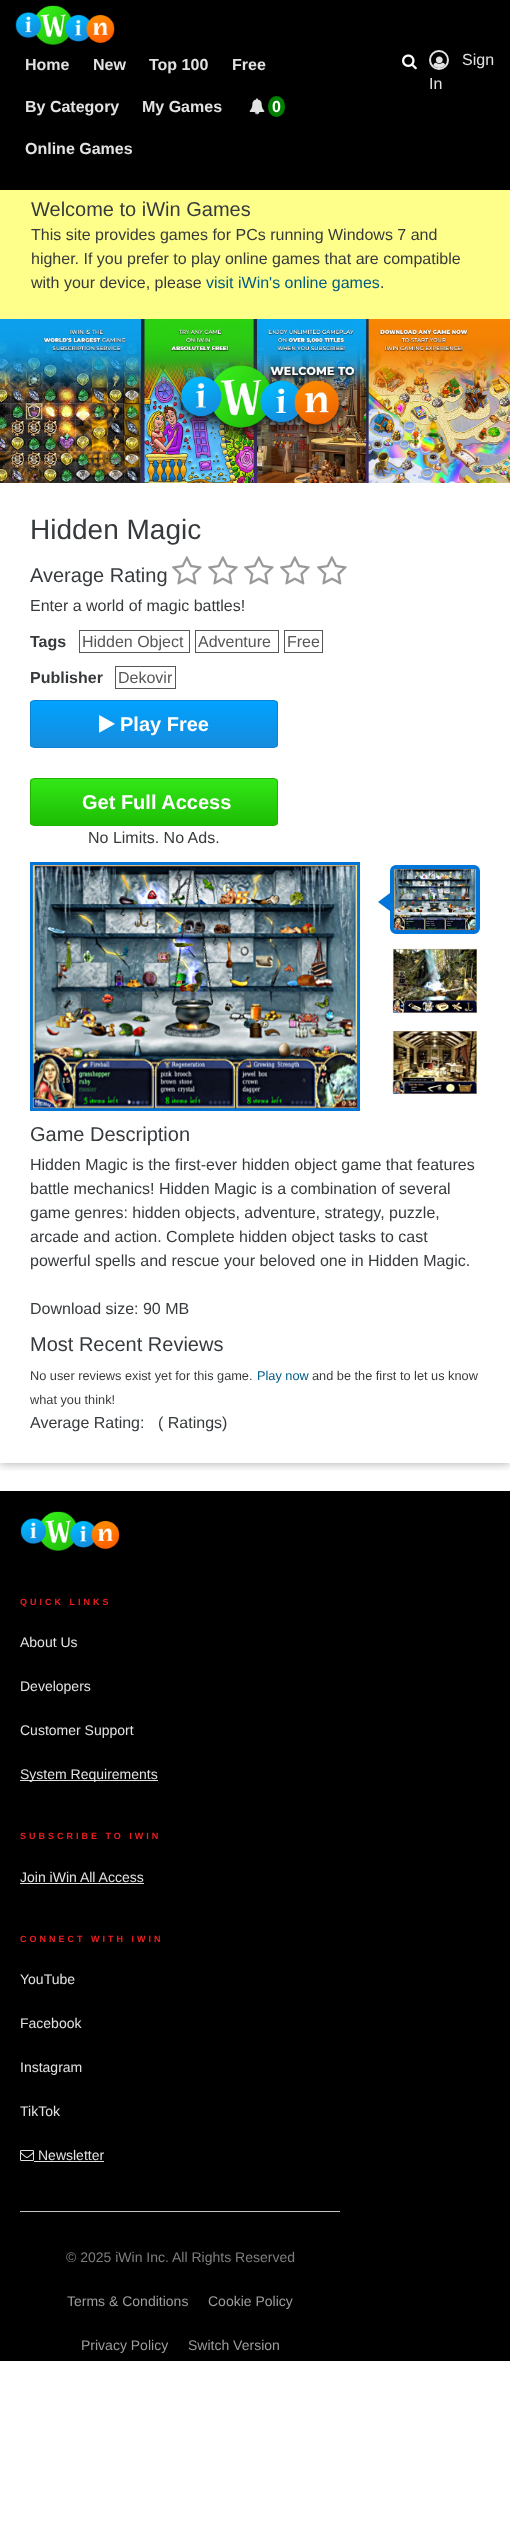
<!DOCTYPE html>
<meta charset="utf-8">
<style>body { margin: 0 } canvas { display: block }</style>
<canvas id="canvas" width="510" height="2527"></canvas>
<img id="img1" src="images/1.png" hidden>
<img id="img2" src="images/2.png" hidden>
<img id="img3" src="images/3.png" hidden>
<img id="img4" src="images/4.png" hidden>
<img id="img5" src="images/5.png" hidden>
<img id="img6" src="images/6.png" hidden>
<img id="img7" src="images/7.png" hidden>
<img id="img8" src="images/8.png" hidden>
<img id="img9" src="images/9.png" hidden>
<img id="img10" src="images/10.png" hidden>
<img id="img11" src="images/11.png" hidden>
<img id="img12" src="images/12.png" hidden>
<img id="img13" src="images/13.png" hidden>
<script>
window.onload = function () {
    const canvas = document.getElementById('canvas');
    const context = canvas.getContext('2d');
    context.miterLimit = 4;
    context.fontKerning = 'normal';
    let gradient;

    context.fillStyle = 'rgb(255, 255, 255)';
    context.fillRect(0, 0, 510, 2527);
    context.fillStyle = 'rgb(0, 0, 0)';
    context.fillRect(0, 0, 510, 190);
    context.drawImage(document.getElementById('img1'), 15, 5, 100, 40);
    context.drawImage(document.getElementById('img2'), 249, 98, 16, 17);
    context.fillStyle = 'rgb(0, 128, 0)';
    context.beginPath();
    context.ellipse(276.5, 106.5, 8.5, 10.5, 0, 0, 2 * Math.PI);
    context.fill();
    context.drawImage(document.getElementById('img3'), 402, 54, 15, 16);
    context.beginPath();
    context.arc(439, 60, 9, 0, 2 * Math.PI);
    context.strokeStyle = 'rgb(226, 226, 226)';
    context.lineWidth = 2;
    context.stroke();
    context.drawImage(document.getElementById('img4'), 433, 56, 12, 12);
    context.fillStyle = 'rgb(254, 255, 138)';
    context.fillRect(0, 190, 510, 129);
    context.save();
    context.beginPath();
    context.rect(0, 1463, 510, 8);
    context.clip();
    context.fillStyle = 'rgba(0, 0, 0, 0.3)';
    context.filter = 'blur(5px)';
    context.beginPath();
    context.rect(0, 484, 510, 980);
    context.fill();
    context.filter = 'none';
    context.restore();
    context.drawImage(document.getElementById('img5'), 0, 319, 510, 164);
    context.drawImage(document.getElementById('img6'), 172, 556, 30, 29);
    context.drawImage(document.getElementById('img6'), 208, 556, 30, 29);
    context.drawImage(document.getElementById('img6'), 244, 556, 30, 29);
    context.drawImage(document.getElementById('img6'), 280, 556, 30, 29);
    context.drawImage(document.getElementById('img6'), 317, 556, 30, 29);
    context.strokeStyle = 'rgb(86, 86, 86)';
    context.lineWidth = 1;
    context.strokeRect(79.5, 630.5, 110, 22);
    context.strokeRect(195.5, 630.5, 83, 22);
    context.strokeRect(284.5, 630.5, 38, 22);
    context.strokeRect(115.5, 666.5, 60, 22);
    context.save();
    context.beginPath();
    context.roundRect(30, 700, 248, 48, 4);
    context.clip();
    gradient = context.createLinearGradient(154, 701, 154, 747);
    gradient.addColorStop(0, 'rgb(0, 162, 255)');
    gradient.addColorStop(1, 'rgb(22, 140, 221)');
    context.fillStyle = gradient;
    context.fillRect(30, 701, 248, 46);
    context.restore();
    context.beginPath();
    context.roundRect(30.5, 700.5, 247, 47, 3.5);
    context.strokeStyle = 'rgb(15, 131, 209)';
    context.stroke();
    context.drawImage(document.getElementById('img7'), 99, 715, 16, 18);
    context.save();
    context.beginPath();
    context.roundRect(30, 778, 248, 48, 4);
    context.clip();
    gradient = context.createLinearGradient(154, 779, 154, 825);
    gradient.addColorStop(0, 'rgb(51, 231, 23)');
    gradient.addColorStop(1, 'rgb(28, 189, 2)');
    context.fillStyle = gradient;
    context.fillRect(30, 779, 248, 46);
    context.restore();
    context.beginPath();
    context.roundRect(30.5, 778.5, 247, 47, 3.5);
    context.strokeStyle = 'rgb(34, 177, 1)';
    context.stroke();
    context.strokeStyle = 'rgb(2, 117, 216)';
    context.lineWidth = 3;
    context.strokeRect(31.5, 863.5, 327, 246);
    context.drawImage(document.getElementById('img8'), 32, 865, 326, 244);
    context.fillStyle = 'rgb(2, 117, 216)';
    context.beginPath();
    context.moveTo(390, 893);
    context.lineTo(390, 911);
    context.lineTo(378, 902);
    context.closePath();
    context.fill();
    context.beginPath();
    context.roundRect(392, 867, 86, 65, 4);
    context.lineWidth = 4;
    context.stroke();
    context.drawImage(document.getElementById('img9'), 394, 869, 82, 61);
    context.drawImage(document.getElementById('img10'), 392, 948, 86, 66);
    context.drawImage(document.getElementById('img11'), 392, 1031, 85, 63);
    context.fillStyle = 'rgb(0, 0, 0)';
    context.fillRect(0, 1491, 510, 870);
    context.drawImage(document.getElementById('img12'), 20, 1511, 100, 40);
    context.fillStyle = 'rgb(226, 226, 226)';
    context.fillRect(20, 1780, 138, 1);
    context.fillRect(20, 1883, 124, 1);
    context.drawImage(document.getElementById('img13'), 20, 2150, 14, 11);
    context.fillRect(34, 2161, 70, 1);
    context.fillStyle = 'rgb(196, 196, 196)';
    context.fillRect(20, 2211, 320, 1);
    context.font = 'bold 16px Liberation Sans';
    context.fillStyle = 'rgb(226, 226, 226)';
    context.fillText('Home', 25, 70);
    context.fillText('New', 93, 70);
    context.fillText('Top 100', 149, 70);
    context.fillText('Free', 232, 70);
    context.fillText('By Category', 25, 112);
    context.fillText('My Games', 142, 112);
    context.fillStyle = 'rgb(255, 255, 255)';
    context.fillText('0', 272, 112);
    context.fillStyle = 'rgb(226, 226, 226)';
    context.fillText('Online Games', 25, 154);
    context.font = '16px Liberation Sans';
    context.fillText('Sign', 462, 65);
    context.fillText('In', 429, 89);
    context.font = '20px Liberation Sans';
    context.fillStyle = 'rgb(55, 58, 60)';
    context.fillText('Welcome to iWin Games', 31, 216);
    context.font = '16px Liberation Sans';
    context.fillText('This site provides games for PCs running Windows 7 and', 31, 240);
    context.fillText('higher. If you prefer to play online games that are compatible', 31, 264);
    context.fillText('with your device, please', 31, 288);
    context.fillStyle = 'rgb(2, 91, 132)';
    context.fillText('visit iWin\'s online games', 206, 288);
    context.fillStyle = 'rgb(55, 58, 60)';
    context.fillText('.', 380, 288);
    context.font = '28px Liberation Sans';
    context.fillText('Hidden Magic', 30, 539);
    context.font = '20px Liberation Sans';
    context.fillText('Average Rating', 30, 582);
    context.font = '16px Liberation Sans';
    context.fillText('Enter a world of magic battles!', 30, 611);
    context.font = 'bold 16px Liberation Sans';
    context.fillText('Tags', 30, 647);
    context.font = '16px Liberation Sans';
    context.fillStyle = 'rgb(86, 86, 86)';
    context.fillText('Hidden Object', 82, 647);
    context.fillText('Adventure', 198, 647);
    context.fillText('Free', 287, 647);
    context.font = 'bold 16px Liberation Sans';
    context.fillStyle = 'rgb(55, 58, 60)';
    context.fillText('Publisher', 30, 683);
    context.font = '16px Liberation Sans';
    context.fillStyle = 'rgb(86, 86, 86)';
    context.fillText('Dekovir', 118, 683);
    context.font = 'bold 20px Liberation Sans';
    context.fillStyle = 'rgb(255, 255, 255)';
    context.fillText('Play Free', 120, 731);
    context.fillText('Get Full Access', 82, 809);
    context.font = '16px Liberation Sans';
    context.fillStyle = 'rgb(55, 58, 60)';
    context.fillText('No Limits. No Ads.', 88, 843);
    context.font = '20px Liberation Sans';
    context.fillText('Game Description', 30, 1141);
    context.font = '16px Liberation Sans';
    context.fillText('Hidden Magic is the first-ever hidden object game that features', 30, 1170);
    context.fillText('battle mechanics! Hidden Magic is a combination of several', 30, 1194);
    context.fillText('game genres: hidden objects, adventure, strategy, puzzle,', 30, 1218);
    context.fillText('arcade and action. Complete hidden object tasks to cast', 30, 1242);
    context.fillText('powerful spells and rescue your beloved one in Hidden Magic.', 30, 1266);
    context.fillText('Download size: 90 MB', 30, 1314);
    context.font = '20px Liberation Sans';
    context.fillText('Most Recent Reviews', 30, 1351);
    context.font = '12.75px Liberation Sans';
    context.fillText('No user reviews exist yet for this game.', 30, 1380);
    context.fillStyle = 'rgb(2, 91, 132)';
    context.fillText('Play now', 257, 1380);
    context.fillStyle = 'rgb(55, 58, 60)';
    context.fillText('and be the first to let us know', 312, 1380);
    context.fillText('what you think!', 30, 1404);
    context.font = '16px Liberation Sans';
    context.fillText('Average Rating:', 30, 1428);
    context.fillText('( Ratings)', 158, 1428);
    context.letterSpacing = '3px';
    context.font = 'bold 9px Liberation Sans';
    context.fillStyle = 'rgb(233, 31, 34)';
    context.fillText('QUICK LINKS', 20, 1605);
    context.letterSpacing = '0px';
    context.font = '14px Liberation Sans';
    context.fillStyle = 'rgb(226, 226, 226)';
    context.fillText('About Us', 20, 1647);
    context.fillText('Developers', 20, 1691);
    context.fillText('Customer Support', 20, 1735);
    context.fillText('System Requirements', 20, 1779);
    context.letterSpacing = '3px';
    context.font = 'bold 9px Liberation Sans';
    context.fillStyle = 'rgb(233, 31, 34)';
    context.fillText('SUBSCRIBE TO IWIN', 20, 1839);
    context.letterSpacing = '0px';
    context.font = '14px Liberation Sans';
    context.fillStyle = 'rgb(226, 226, 226)';
    context.fillText('Join iWin All Access', 20, 1882);
    context.letterSpacing = '3px';
    context.font = 'bold 9px Liberation Sans';
    context.fillStyle = 'rgb(233, 31, 34)';
    context.fillText('CONNECT WITH IWIN', 20, 1942);
    context.letterSpacing = '0px';
    context.font = '14px Liberation Sans';
    context.fillStyle = 'rgb(226, 226, 226)';
    context.fillText('YouTube', 20, 1984);
    context.fillText('Facebook', 20, 2028);
    context.fillText('Instagram', 20, 2072);
    context.fillText('TikTok', 20, 2116);
    context.fillText('Newsletter', 38, 2160);
    context.fillStyle = 'rgb(124, 126, 127)';
    context.fillText('© 2025 iWin Inc. All Rights Reserved', 66, 2262);
    context.fillStyle = 'rgb(157, 157, 157)';
    context.fillText('Terms & Conditions', 67, 2306);
    context.fillText('Cookie Policy', 208, 2306);
    context.fillText('Privacy Policy', 81, 2350);
    context.fillText('Switch Version', 188, 2350);
};
</script>
